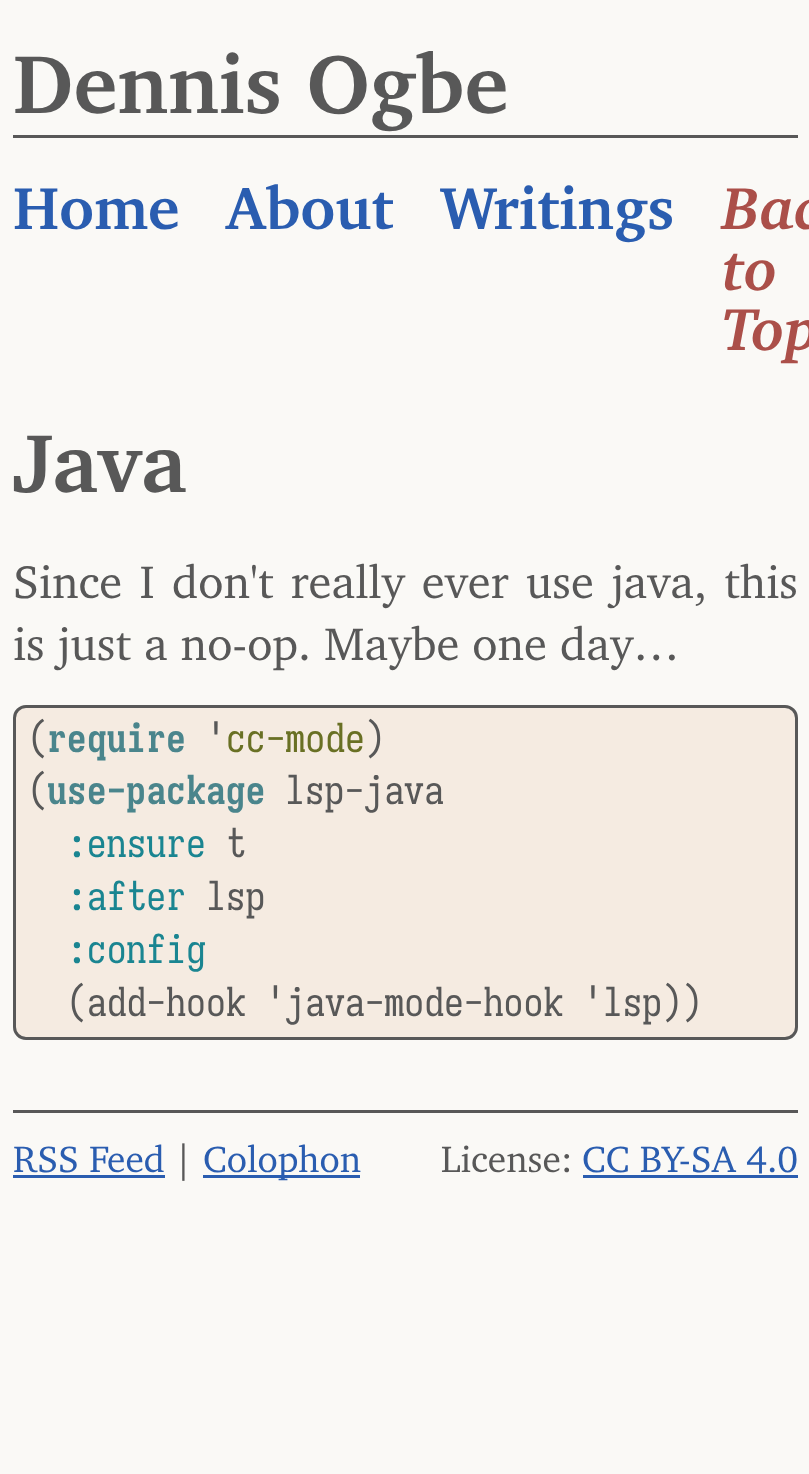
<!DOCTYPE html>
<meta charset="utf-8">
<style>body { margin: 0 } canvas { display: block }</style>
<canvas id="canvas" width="809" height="1474"></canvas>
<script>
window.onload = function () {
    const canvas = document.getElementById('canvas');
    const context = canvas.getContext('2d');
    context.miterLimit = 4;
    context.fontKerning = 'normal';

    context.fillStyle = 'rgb(250, 249, 246)';
    context.fillRect(0, 0, 809, 1474);
    context.fillStyle = 'rgb(88, 88, 88)';
    context.fillRect(13, 135, 785, 3);
    context.fillStyle = 'rgb(245, 235, 225)';
    context.beginPath();
    context.roundRect(14.5, 706.5, 782, 332, 11.5);
    context.fill();
    context.strokeStyle = 'rgb(88, 88, 88)';
    context.lineWidth = 3;
    context.stroke();
    context.fillStyle = 'rgb(88, 88, 88)';
    context.fillRect(13, 1110, 785, 3);
    context.fillStyle = 'rgb(42, 93, 176)';
    context.fillRect(13, 1175, 152, 3);
    context.fillRect(203, 1175, 157, 3);
    context.fillRect(583, 1175, 215, 3);
    context.font = 'bold 84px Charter';
    context.fillStyle = 'rgb(88, 88, 88)';
    context.fillText('Dennis Ogbe', 13, 113);
    context.font = 'bold 60.5px Charter';
    context.fillStyle = 'rgb(42, 93, 176)';
    context.fillText('Home', 13, 229);
    context.fillText('About', 226, 229);
    context.fillText('Writings', 440, 229);
    context.font = 'italic bold 60.5px Charter';
    context.fillStyle = 'rgb(171, 79, 73)';
    context.fillText('Bac', 722, 229);
    context.fillText('to', 722, 290);
    context.fillText('Top', 722, 350);
    context.font = 'bold 84px Charter';
    context.fillStyle = 'rgb(88, 88, 88)';
    context.fillText('Java', 13, 492);
    context.wordSpacing = '4.25px';
    context.font = '46.7px Charter';
    context.fillText('Since I don\'t really ever use java, this', 13, 598);
    context.wordSpacing = '0px';
    context.fillText('is just a no-op. Maybe one day…', 13, 660);
    context.font = '39.7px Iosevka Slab';
    context.fillText('(', 28, 752);
    context.font = 'bold 39.7px Iosevka Slab';
    context.fillStyle = 'rgb(74, 133, 140)';
    context.fillText('require', 47, 752);
    context.font = '39.7px Iosevka Slab';
    context.fillStyle = 'rgb(88, 88, 88)';
    context.fillText('\'', 206, 752);
    context.fillStyle = 'rgb(105, 112, 36)';
    context.fillText('cc-mode', 226, 752);
    context.fillStyle = 'rgb(88, 88, 88)';
    context.fillText(')', 365, 752);
    context.fillText('(', 28, 804);
    context.font = 'bold 39.7px Iosevka Slab';
    context.fillStyle = 'rgb(74, 133, 140)';
    context.fillText('use-package', 47, 804);
    context.font = '39.7px Iosevka Slab';
    context.fillStyle = 'rgb(88, 88, 88)';
    context.fillText('lsp-java', 285, 804);
    context.fillStyle = 'rgb(26, 133, 145)';
    context.fillText(':ensure', 67, 857);
    context.fillStyle = 'rgb(88, 88, 88)';
    context.fillText('t', 226, 857);
    context.fillStyle = 'rgb(26, 133, 145)';
    context.fillText(':after', 67, 910);
    context.fillStyle = 'rgb(88, 88, 88)';
    context.fillText('lsp', 206, 910);
    context.fillStyle = 'rgb(26, 133, 145)';
    context.fillText(':config', 67, 963);
    context.fillStyle = 'rgb(88, 88, 88)';
    context.fillText('(add-hook \'java-mode-hook \'lsp))', 67, 1016);
    context.font = '37.5px Charter';
    context.fillStyle = 'rgb(42, 93, 176)';
    context.fillText('RSS Feed', 13, 1172);
    context.fillStyle = 'rgb(88, 88, 88)';
    context.fillText('|', 174, 1172);
    context.fillStyle = 'rgb(42, 93, 176)';
    context.fillText('Colophon', 203, 1172);
    context.fillStyle = 'rgb(88, 88, 88)';
    context.fillText('License:', 441, 1172);
    context.fillStyle = 'rgb(42, 93, 176)';
    context.fillText('CC BY-SA 4.0', 582, 1172);
};
</script>
